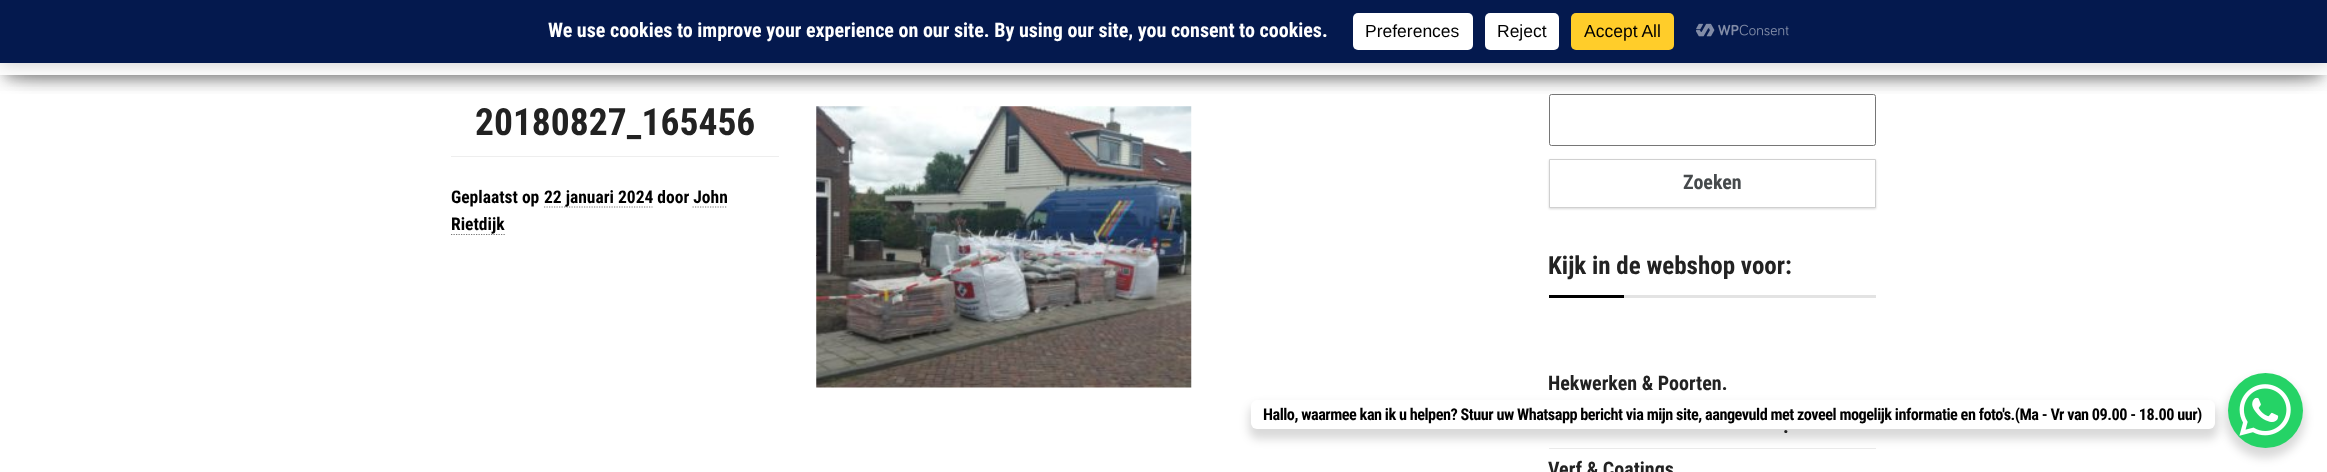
<!DOCTYPE html>
<meta charset="utf-8">
<style>body { margin: 0 } canvas { display: block }</style>
<canvas id="canvas" width="2327" height="472"></canvas>
<img id="img1" src="images/2.png" hidden>
<img id="img2" src="images/1.png" hidden>
<img id="img3" src="images/3.png" hidden>
<script>
window.onload = function () {
    const canvas = document.getElementById('canvas');
    const context = canvas.getContext('2d');
    context.miterLimit = 4;
    context.fontKerning = 'normal';

    context.fillStyle = 'rgb(255, 255, 255)';
    context.fillRect(0, 0, 2327, 472);
    context.beginPath();
    context.roundRect(1549.5, 94.5, 326, 51, 2);
    context.strokeStyle = 'rgb(118, 118, 118)';
    context.stroke();
    context.save();
    context.beginPath();
    context.rect(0, 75, 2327, 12);
    context.clip();
    context.fillStyle = 'rgba(0, 0, 0, 0.2)';
    context.filter = 'blur(6px)';
    context.beginPath();
    context.rect(6, 16, 2315, 63);
    context.fill();
    context.filter = 'none';
    context.restore();
    context.beginPath();
    context.moveTo(816, 255.5);
    context.lineTo(1191, 255.5);
    context.strokeStyle = 'rgb(119, 119, 119)';
    context.lineWidth = 1.2;
    context.setLineDash([1.25, 1.25]);
    context.stroke();
    context.drawImage(document.getElementById('img1'), 816, 106, 376, 282);
    context.save();
    context.beginPath();
    context.rect(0, 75, 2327, 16);
    context.clip();
    context.fillStyle = 'rgba(0, 0, 0, 0.12)';
    context.filter = 'blur(12.5px)';
    context.beginPath();
    context.rect(0, 4, 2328, 75);
    context.fill();
    context.filter = 'none';
    context.restore();
    context.save();
    context.beginPath();
    context.rect(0, 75, 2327, 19);
    context.clip();
    context.fillStyle = 'rgba(0, 0, 0, 0.42)';
    context.filter = 'blur(12.5px)';
    context.beginPath();
    context.rect(15, 28, 2298, 45);
    context.fill();
    context.filter = 'none';
    context.restore();
    context.fillStyle = 'rgba(0, 0, 0, 0.2)';
    context.filter = 'blur(9px)';
    context.beginPath();
    context.rect(0, 1, 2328, 63);
    context.fill();
    context.filter = 'none';
    context.fillStyle = 'rgb(4, 25, 78)';
    context.fillRect(0, 0, 2327, 63);
    context.fillStyle = 'rgb(255, 255, 255)';
    context.beginPath();
    context.roundRect(1353, 13, 120, 37, 5);
    context.fill();
    context.beginPath();
    context.roundRect(1485, 13, 74, 37, 5);
    context.fill();
    context.fillStyle = 'rgb(255, 205, 42)';
    context.beginPath();
    context.roundRect(1571, 13, 103, 37, 5);
    context.fill();
    context.drawImage(document.getElementById('img2'), 1696, 23, 93, 14);
    context.fillStyle = 'rgb(238, 238, 238)';
    context.fillRect(451, 156, 328, 1);
    context.beginPath();
    context.moveTo(544, 207);
    context.lineTo(652.5, 207);
    context.stroke();
    context.beginPath();
    context.moveTo(451, 234.5);
    context.lineTo(505, 234.5);
    context.stroke();
    context.fillStyle = 'rgba(0, 0, 0, 0.15)';
    context.filter = 'blur(1px)';
    context.beginPath();
    context.rect(1549, 160, 327, 49);
    context.fill();
    context.filter = 'none';
    context.fillStyle = 'rgb(255, 255, 255)';
    context.beginPath();
    context.rect(1549.5, 159.5, 326, 48);
    context.fill();
    context.strokeStyle = 'rgb(208, 208, 208)';
    context.lineWidth = 1;
    context.setLineDash([]);
    context.stroke();
    context.fillStyle = 'rgb(227, 227, 227)';
    context.fillRect(1624, 295, 252, 3);
    context.fillStyle = 'rgb(0, 0, 0)';
    context.fillRect(1549, 295, 75, 3);
    context.fillStyle = 'rgb(235, 235, 235)';
    context.fillRect(1549, 448, 327, 1);
    context.fillStyle = 'rgba(0, 0, 0, 0.15)';
    context.filter = 'blur(5px)';
    context.beginPath();
    context.roundRect(2225, 378, 80, 80, 40);
    context.fill();
    context.filter = 'none';
    context.fillStyle = 'rgb(37, 211, 102)';
    context.beginPath();
    context.arc(2265.5, 410.5, 37.5, 0, 2 * Math.PI);
    context.fill();
    context.fillStyle = 'rgba(0, 0, 0, 0.15)';
    context.filter = 'blur(5px)';
    context.beginPath();
    context.roundRect(1249, 405, 969, 34, 9);
    context.fill();
    context.filter = 'none';
    context.fillStyle = 'rgb(255, 255, 255)';
    context.beginPath();
    context.roundRect(1251, 400, 964, 29, 6);
    context.fill();
    context.drawImage(document.getElementById('img3'), 2239, 384, 52, 52);
    context.font = 'bold 20px Roboto Condensed';
    context.fillText('We use cookies to improve your experience on our site. By using our site, you consent to cookies.', 548, 37);
    context.font = '17.5px Liberation Sans';
    context.fillStyle = 'rgb(0, 0, 0)';
    context.fillText('Preferences', 1365, 37);
    context.fillText('Reject', 1497, 37);
    context.fillText('Accept All', 1584, 37);
    context.font = 'bold 37.5px Roboto Condensed';
    context.fillStyle = 'rgb(34, 34, 34)';
    context.fillText('20180827_165456', 475, 135);
    context.font = 'bold 17.5px Roboto Condensed';
    context.fillStyle = 'rgb(0, 0, 0)';
    context.fillText('Geplaatst op', 451, 203);
    context.fillText('22 januari 2024 door John', 544, 203);
    context.fillText('Rietdijk', 451, 230);
    context.beginPath();
    context.moveTo(692.5, 207);
    context.lineTo(727.5, 207);
    context.strokeStyle = 'rgb(119, 119, 119)';
    context.lineWidth = 1.2;
    context.setLineDash([1.25, 1.25]);
    context.stroke();
    context.font = 'bold 20px Roboto Condensed';
    context.fillStyle = 'rgb(70, 74, 76)';
    context.fillText('Zoeken', 1683, 189);
    context.font = 'bold 25px Roboto Condensed';
    context.fillStyle = 'rgb(34, 34, 34)';
    context.fillText('Kijk in de webshop voor:', 1548, 274);
    context.font = 'bold 20px Roboto Condensed';
    context.fillText('Hekwerken & Poorten.', 1548, 390);
    context.fillText('.', 1783, 433);
    context.fillText('Verf & Coatings', 1548, 476);
    context.letterSpacing = '-0.49px';
    context.font = 'bold 16.25px Roboto Condensed';
    context.fillStyle = 'rgb(0, 0, 0)';
    context.fillText('Hallo, waarmee kan ik u helpen? Stuur uw Whatsapp bericht via mijn site, aangevuld met zoveel mogelijk informatie en foto\'s.(Ma - Vr van 09.00 - 18.00 uur)', 1263, 420);
};
</script>
